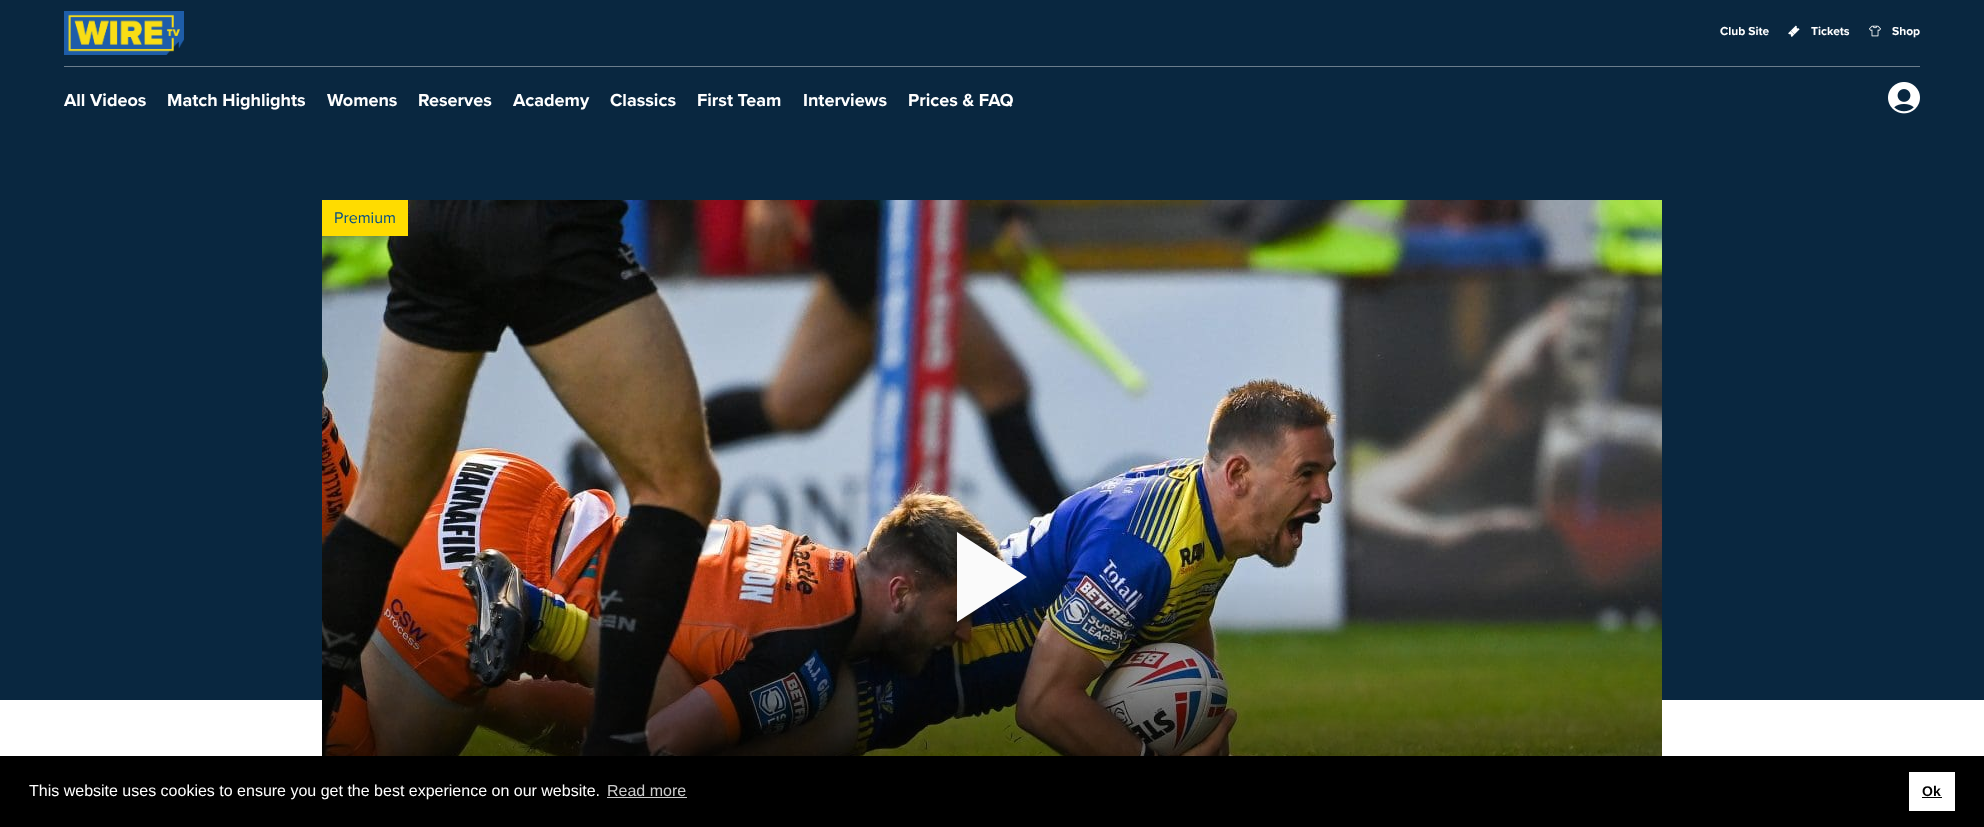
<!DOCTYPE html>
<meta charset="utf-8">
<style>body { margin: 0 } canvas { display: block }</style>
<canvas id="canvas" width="1984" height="827"></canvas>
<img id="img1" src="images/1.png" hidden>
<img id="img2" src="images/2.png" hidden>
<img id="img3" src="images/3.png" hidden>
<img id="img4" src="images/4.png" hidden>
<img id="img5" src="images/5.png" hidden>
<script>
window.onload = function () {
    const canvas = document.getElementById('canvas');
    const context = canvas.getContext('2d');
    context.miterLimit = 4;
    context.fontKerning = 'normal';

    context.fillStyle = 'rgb(255, 255, 255)';
    context.fillRect(0, 0, 1984, 827);
    context.fillStyle = 'rgb(9, 39, 64)';
    context.fillRect(0, 0, 1984, 700);
    context.fillStyle = 'rgb(107, 125, 140)';
    context.fillRect(64, 66, 1856, 1);
    context.drawImage(document.getElementById('img1'), 64, 11, 120, 44);
    context.drawImage(document.getElementById('img2'), 1788, 25, 12, 12);
    context.drawImage(document.getElementById('img3'), 1869, 25, 12, 12);
    context.drawImage(document.getElementById('img4'), 1888, 82, 32, 32);
    context.drawImage(document.getElementById('img5'), 322, 200, 1340, 556);
    context.fillStyle = 'rgb(255, 220, 0)';
    context.fillRect(322, 200, 86, 36);
    context.fillStyle = 'rgb(250, 250, 250)';
    context.beginPath();
    context.moveTo(957, 532);
    context.lineTo(957, 622);
    context.lineTo(1027, 577);
    context.closePath();
    context.fill();
    context.fillStyle = 'rgb(0, 0, 0)';
    context.fillRect(0, 756, 1984, 71);
    context.fillStyle = 'rgb(204, 204, 204)';
    context.fillRect(607, 797, 80, 1);
    context.fillStyle = 'rgb(255, 255, 255)';
    context.fillRect(1909, 772, 46, 39);
    context.fillStyle = 'rgb(0, 0, 0)';
    context.fillRect(1922, 797, 20, 1);
    context.font = 'bold 12px Proxima Nova';
    context.fillStyle = 'rgb(255, 255, 255)';
    context.fillText('Club Site', 1720, 35);
    context.fillText('Tickets', 1811, 35);
    context.fillText('Shop', 1892, 35);
    context.font = 'bold 18px Proxima Nova';
    context.fillText('All Videos', 64, 106);
    context.fillText('Match Highlights', 167, 106);
    context.fillText('Womens', 327, 106);
    context.fillText('Reserves', 418, 106);
    context.fillText('Academy', 513, 106);
    context.fillText('Classics', 610, 106);
    context.fillText('First Team', 697, 106);
    context.fillText('Interviews', 803, 106);
    context.fillText('Prices & FAQ', 908, 106);
    context.font = '16px Proxima Nova';
    context.fillStyle = 'rgb(0, 76, 136)';
    context.fillText('Premium', 334, 223);
    context.font = '16px Liberation Sans';
    context.fillStyle = 'rgb(255, 255, 255)';
    context.fillText('This website uses cookies to ensure you get the best experience on our website.', 29, 796);
    context.fillStyle = 'rgb(204, 204, 204)';
    context.fillText('Read more', 607, 796);
    context.font = 'bold 14px Liberation Sans';
    context.fillStyle = 'rgb(0, 0, 0)';
    context.fillText('Ok', 1922, 796);
};
</script>
